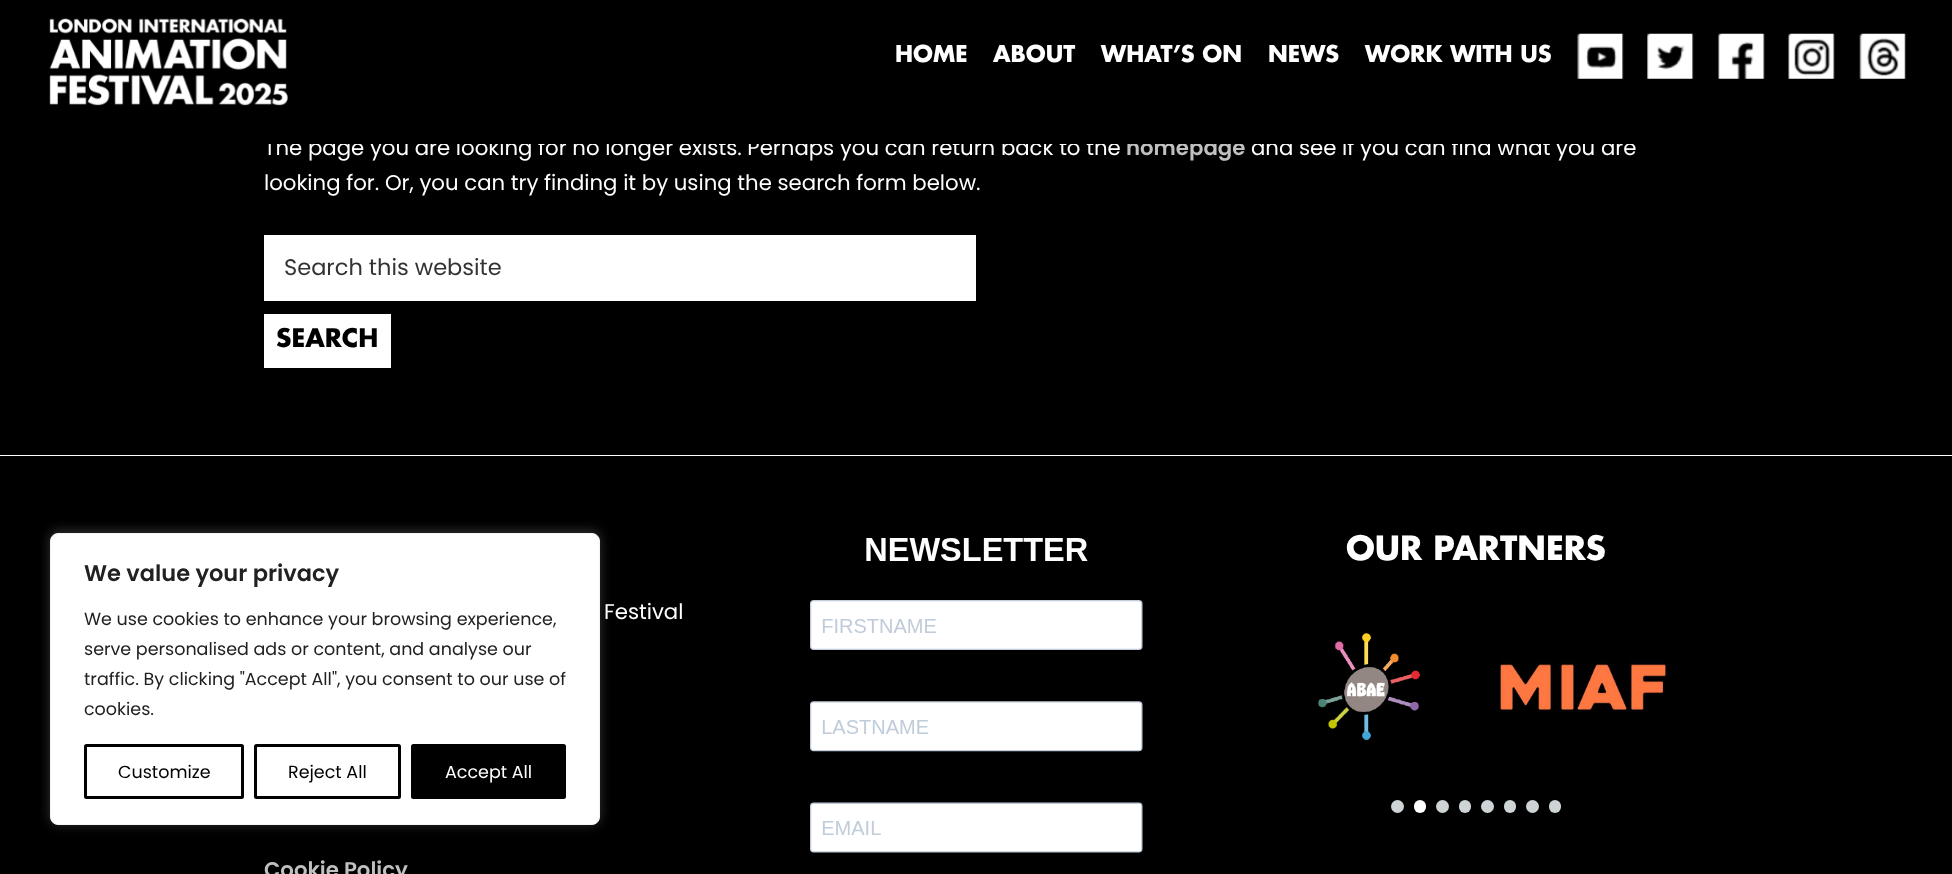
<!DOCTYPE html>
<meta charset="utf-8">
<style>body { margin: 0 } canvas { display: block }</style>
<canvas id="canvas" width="1952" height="874"></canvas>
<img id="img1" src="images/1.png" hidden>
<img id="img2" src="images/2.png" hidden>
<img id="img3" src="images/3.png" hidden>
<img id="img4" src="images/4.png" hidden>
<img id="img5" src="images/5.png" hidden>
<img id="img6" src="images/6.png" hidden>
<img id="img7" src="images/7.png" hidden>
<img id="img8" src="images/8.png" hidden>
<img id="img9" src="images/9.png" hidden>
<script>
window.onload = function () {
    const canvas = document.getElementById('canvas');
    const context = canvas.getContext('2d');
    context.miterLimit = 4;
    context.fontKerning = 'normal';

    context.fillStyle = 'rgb(0, 0, 0)';
    context.fillRect(0, 0, 1952, 874);
    context.drawImage(document.getElementById('img1'), 49, 18, 239, 88);
    context.drawImage(document.getElementById('img2'), 1577, 33, 47, 46);
    context.drawImage(document.getElementById('img3'), 1647, 33, 47, 46);
    context.drawImage(document.getElementById('img4'), 1718, 33, 47, 46);
    context.drawImage(document.getElementById('img5'), 1788, 33, 47, 46);
    context.drawImage(document.getElementById('img6'), 1859, 33, 47, 46);
    context.fillStyle = 'rgb(255, 255, 255)';
    context.fillRect(264, 235, 712, 66);
    context.fillRect(264, 314, 127, 54);
    context.fillRect(0, 455, 1952, 1);
    context.drawImage(document.getElementById('img7'), 810, 538, 333, 315);
    context.drawImage(document.getElementById('img8'), 1318, 633, 103, 107);
    context.drawImage(document.getElementById('img9'), 1500, 659, 170, 53);
    context.fillStyle = 'rgb(206, 211, 213)';
    context.beginPath();
    context.arc(1397.5, 806.5, 6.5, 0, 2 * Math.PI);
    context.fill();
    context.fillStyle = 'rgb(255, 255, 255)';
    context.beginPath();
    context.roundRect(1414, 800, 12, 13, 6);
    context.fill();
    context.fillStyle = 'rgb(206, 211, 213)';
    context.beginPath();
    context.arc(1442.5, 806.5, 6.5, 0, 2 * Math.PI);
    context.fill();
    context.beginPath();
    context.roundRect(1459, 800, 12, 13, 6);
    context.fill();
    context.beginPath();
    context.arc(1487.5, 806.5, 6.5, 0, 2 * Math.PI);
    context.fill();
    context.beginPath();
    context.roundRect(1504, 800, 12, 13, 6);
    context.fill();
    context.beginPath();
    context.arc(1532.5, 806.5, 6.5, 0, 2 * Math.PI);
    context.fill();
    context.beginPath();
    context.roundRect(1549, 800, 12, 13, 6);
    context.fill();
    context.fillStyle = 'rgba(172, 171, 171, 0.3)';
    context.filter = 'blur(6px)';
    context.beginPath();
    context.roundRect(50, 531, 550, 293, 8);
    context.fill();
    context.filter = 'none';
    context.fillStyle = 'rgb(255, 255, 255)';
    context.beginPath();
    context.roundRect(50.5, 533.5, 549, 291, 7.5);
    context.fill();
    context.strokeStyle = 'rgb(244, 244, 244)';
    context.stroke();
    context.beginPath();
    context.roundRect(85.5, 745.5, 157, 52, 1);
    context.strokeStyle = 'rgb(0, 0, 0)';
    context.lineWidth = 3;
    context.stroke();
    context.beginPath();
    context.roundRect(255.5, 745.5, 144, 52, 1);
    context.stroke();
    context.fillStyle = 'rgb(0, 0, 0)';
    context.beginPath();
    context.roundRect(412.5, 745.5, 152, 52, 1);
    context.fill();
    context.stroke();
    context.font = 'bold 22.5px Futura';
    context.fillStyle = 'rgb(255, 255, 255)';
    context.fillText('HOME', 895, 62);
    context.fillText('ABOUT', 993, 62);
    context.fillText('WHAT’S ON', 1101, 62);
    context.fillText('NEWS', 1268, 62);
    context.fillText('WORK WITH US', 1365, 62);
    context.font = '21.25px Poppins';
    context.fillText('The page you are looking for no longer exists. Perhaps you can return back to the', 264, 155);
    context.font = '600 21.25px Poppins';
    context.fillStyle = 'rgb(192, 192, 192)';
    context.fillText('homepage', 1126, 155);
    context.font = '21.25px Poppins';
    context.fillStyle = 'rgb(255, 255, 255)';
    context.fillText('and see if you can find what you are', 1251, 155);
    context.fillStyle = 'rgb(0, 0, 0)';
    context.fillRect(264, 138, 1369, 6);
    context.fillStyle = 'rgb(255, 255, 255)';
    context.fillText('looking for. Or, you can try finding it by using the search form below.', 264, 190);
    context.font = '22.5px Poppins';
    context.fillStyle = 'rgb(51, 51, 51)';
    context.fillText('Search this website', 284, 275);
    context.font = 'bold 25px Futura';
    context.fillStyle = 'rgb(0, 0, 0)';
    context.fillText('SEARCH', 276, 347);
    context.font = '21.25px Poppins';
    context.fillStyle = 'rgb(255, 255, 255)';
    context.fillText('Festival', 604, 619);
    context.font = '600 21.25px Poppins';
    context.fillStyle = 'rgb(192, 192, 192)';
    context.fillText('Cookie Policy', 264, 877);
    context.font = 'bold 32.5px Futura';
    context.fillStyle = 'rgb(255, 255, 255)';
    context.fillText('OUR PARTNERS', 1346, 560);
    context.font = '600 22.5px Poppins';
    context.fillStyle = 'rgb(33, 33, 33)';
    context.fillText('We value your privacy', 84, 581);
    context.font = '17.5px Poppins';
    context.fillText('We use cookies to enhance your browsing experience,', 84, 625);
    context.fillText('serve personalised ads or content, and analyse our', 84, 655);
    context.fillText('traffic. By clicking "Accept All", you consent to our use of', 84, 685);
    context.fillText('cookies.', 84, 715);
    context.fillStyle = 'rgb(0, 0, 0)';
    context.fillText('Customize', 118, 778);
    context.fillText('Reject All', 288, 778);
    context.fillStyle = 'rgb(255, 255, 255)';
    context.fillText('Accept All', 445, 778);
};
</script>
